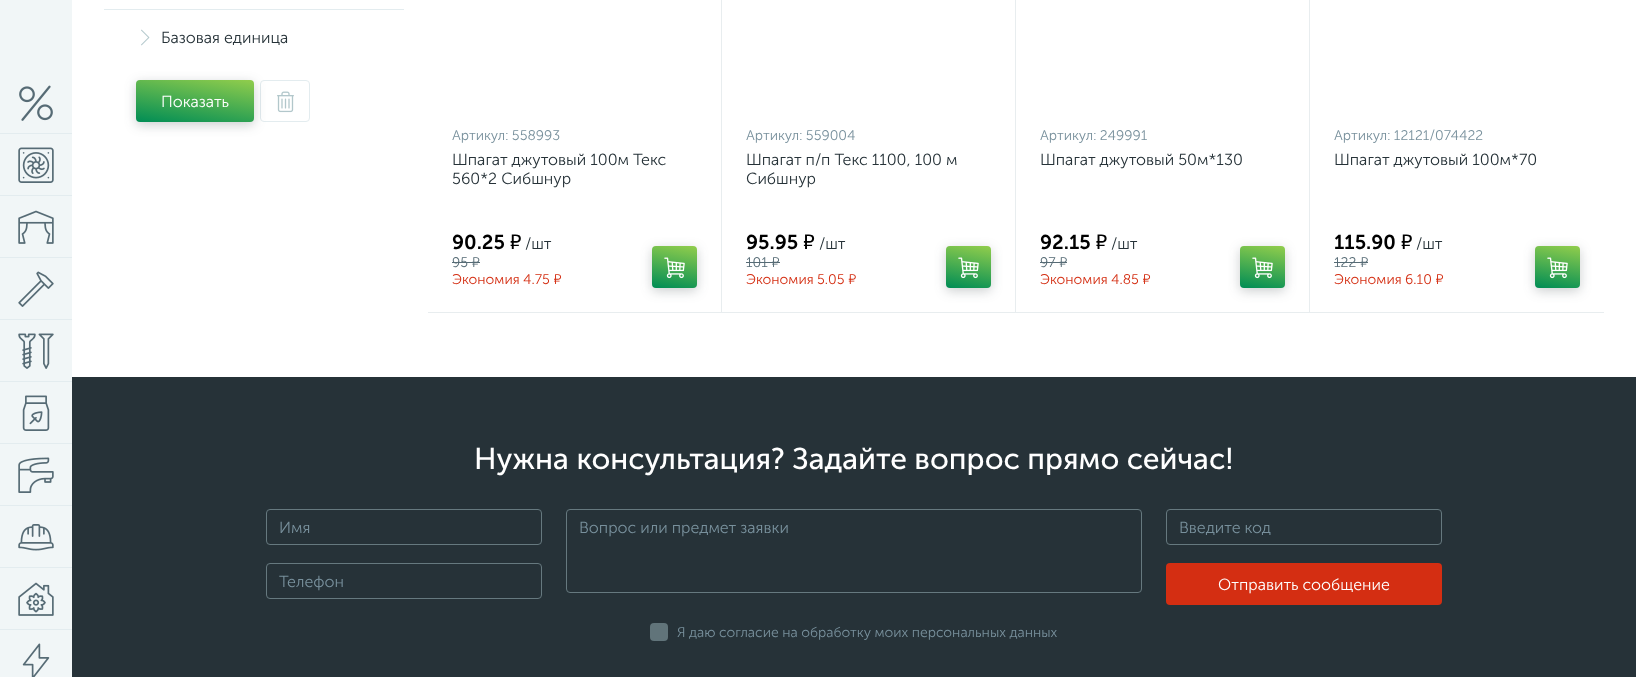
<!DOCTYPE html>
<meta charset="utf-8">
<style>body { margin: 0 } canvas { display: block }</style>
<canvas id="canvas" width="1636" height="677"></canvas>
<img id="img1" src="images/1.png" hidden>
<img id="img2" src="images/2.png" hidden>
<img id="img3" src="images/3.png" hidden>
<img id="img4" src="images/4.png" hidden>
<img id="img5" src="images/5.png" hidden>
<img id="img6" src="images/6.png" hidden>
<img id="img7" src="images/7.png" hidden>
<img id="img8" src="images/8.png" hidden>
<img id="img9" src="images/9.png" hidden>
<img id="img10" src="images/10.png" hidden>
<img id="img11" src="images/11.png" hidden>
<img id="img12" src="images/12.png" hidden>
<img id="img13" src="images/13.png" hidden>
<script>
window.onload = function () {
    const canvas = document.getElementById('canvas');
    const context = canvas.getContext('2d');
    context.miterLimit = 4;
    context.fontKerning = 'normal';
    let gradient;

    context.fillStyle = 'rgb(255, 255, 255)';
    context.fillRect(0, 0, 1636, 677);
    context.fillStyle = 'rgb(241, 246, 247)';
    context.fillRect(0, 0, 72, 677);
    context.drawImage(document.getElementById('img1'), 19, 85, 34, 36);
    context.fillStyle = 'rgb(227, 236, 239)';
    context.fillRect(0, 133, 72, 1);
    context.drawImage(document.getElementById('img2'), 18, 147, 36, 36);
    context.fillRect(0, 195, 72, 1);
    context.drawImage(document.getElementById('img3'), 18, 210, 36, 34);
    context.fillRect(0, 257, 72, 1);
    context.drawImage(document.getElementById('img4'), 18, 271, 36, 36);
    context.fillRect(0, 319, 72, 1);
    context.drawImage(document.getElementById('img5'), 18, 333, 36, 36);
    context.fillRect(0, 381, 72, 1);
    context.drawImage(document.getElementById('img6'), 22, 395, 28, 36);
    context.fillRect(0, 443, 72, 1);
    context.drawImage(document.getElementById('img7'), 18, 457, 36, 36);
    context.fillRect(0, 505, 72, 1);
    context.drawImage(document.getElementById('img8'), 18, 524, 36, 27);
    context.fillRect(0, 567, 72, 1);
    context.drawImage(document.getElementById('img9'), 18, 582, 36, 34);
    context.fillRect(0, 629, 72, 1);
    context.drawImage(document.getElementById('img10'), 22, 643, 28, 34);
    context.fillRect(104, 9, 300, 1);
    context.drawImage(document.getElementById('img11'), 141, 29, 9, 17);
    context.beginPath();
    context.roundRect(260.5, 80.5, 49, 41, 3.5);
    context.strokeStyle = 'rgb(227, 236, 239)';
    context.stroke();
    context.fillStyle = 'rgba(38, 50, 56, 0.24)';
    context.filter = 'blur(6px)';
    context.beginPath();
    context.roundRect(136, 83, 118, 42, 4);
    context.fill();
    context.filter = 'none';
    gradient = context.createLinearGradient(190, 131, 200, 71);
    gradient.addColorStop(0, 'rgb(0, 141, 85)');
    gradient.addColorStop(1, 'rgb(145, 205, 76)');
    context.fillStyle = gradient;
    context.beginPath();
    context.roundRect(136, 80, 118, 42, 4);
    context.fill();
    context.drawImage(document.getElementById('img12'), 277, 91, 17, 22);
    context.fillStyle = 'rgb(232, 237, 239)';
    context.fillRect(721, 0, 1, 313);
    context.fillRect(428, 312, 294, 1);
    context.fillStyle = 'rgb(86, 107, 117)';
    context.fillRect(452, 262, 28, 1);
    context.fillStyle = 'rgba(38, 50, 56, 0.24)';
    context.filter = 'blur(6px)';
    context.beginPath();
    context.roundRect(652, 249, 45, 42, 4);
    context.fill();
    context.filter = 'none';
    gradient = context.createLinearGradient(670, 291, 679, 243);
    gradient.addColorStop(0, 'rgb(0, 141, 85)');
    gradient.addColorStop(1, 'rgb(145, 205, 76)');
    context.fillStyle = gradient;
    context.beginPath();
    context.roundRect(652, 246, 45, 42, 4);
    context.fill();
    context.drawImage(document.getElementById('img13'), 664, 257, 21, 22);
    context.fillStyle = 'rgb(232, 237, 239)';
    context.fillRect(1015, 0, 1, 313);
    context.fillRect(722, 312, 294, 1);
    context.fillStyle = 'rgb(86, 107, 117)';
    context.fillRect(746, 262, 34, 1);
    context.fillStyle = 'rgba(38, 50, 56, 0.24)';
    context.filter = 'blur(6px)';
    context.beginPath();
    context.roundRect(946, 249, 45, 42, 4);
    context.fill();
    context.filter = 'none';
    gradient = context.createLinearGradient(964, 291, 973, 243);
    gradient.addColorStop(0, 'rgb(0, 141, 85)');
    gradient.addColorStop(1, 'rgb(145, 205, 76)');
    context.fillStyle = gradient;
    context.beginPath();
    context.roundRect(946, 246, 45, 42, 4);
    context.fill();
    context.drawImage(document.getElementById('img13'), 958, 257, 21, 22);
    context.fillStyle = 'rgb(232, 237, 239)';
    context.fillRect(1309, 0, 1, 313);
    context.fillRect(1016, 312, 588, 1);
    context.fillStyle = 'rgb(86, 107, 117)';
    context.fillRect(1040, 262, 27, 1);
    context.fillStyle = 'rgba(38, 50, 56, 0.24)';
    context.filter = 'blur(6px)';
    context.beginPath();
    context.roundRect(1240, 249, 45, 42, 4);
    context.fill();
    context.filter = 'none';
    gradient = context.createLinearGradient(1258, 291, 1267, 243);
    gradient.addColorStop(0, 'rgb(0, 141, 85)');
    gradient.addColorStop(1, 'rgb(145, 205, 76)');
    context.fillStyle = gradient;
    context.beginPath();
    context.roundRect(1240, 246, 45, 42, 4);
    context.fill();
    context.drawImage(document.getElementById('img13'), 1252, 257, 21, 22);
    context.fillStyle = 'rgb(86, 107, 117)';
    context.fillRect(1334, 262, 34, 1);
    context.fillStyle = 'rgba(38, 50, 56, 0.24)';
    context.filter = 'blur(6px)';
    context.beginPath();
    context.roundRect(1535, 249, 45, 42, 4);
    context.fill();
    context.filter = 'none';
    gradient = context.createLinearGradient(1553, 291, 1562, 243);
    gradient.addColorStop(0, 'rgb(0, 141, 85)');
    gradient.addColorStop(1, 'rgb(145, 205, 76)');
    context.fillStyle = gradient;
    context.beginPath();
    context.roundRect(1535, 246, 45, 42, 4);
    context.fill();
    context.drawImage(document.getElementById('img13'), 1547, 257, 21, 22);
    context.fillStyle = 'rgb(38, 50, 56)';
    context.fillRect(72, 377, 1564, 300);
    context.beginPath();
    context.roundRect(266.5, 509.5, 275, 35, 3.5);
    context.strokeStyle = 'rgb(102, 121, 127)';
    context.stroke();
    context.beginPath();
    context.roundRect(266.5, 563.5, 275, 35, 3.5);
    context.stroke();
    context.beginPath();
    context.roundRect(566.5, 509.5, 575, 83, 3.5);
    context.stroke();
    context.beginPath();
    context.roundRect(1166.5, 509.5, 275, 35, 3.5);
    context.stroke();
    context.fillStyle = 'rgb(212, 46, 18)';
    context.beginPath();
    context.roundRect(1166, 563, 276, 42, 4);
    context.fill();
    context.fillStyle = 'rgb(97, 116, 122)';
    context.beginPath();
    context.roundRect(650, 623, 18, 18, 4);
    context.fill();
    context.font = '300 16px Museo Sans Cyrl';
    context.fillStyle = 'rgb(38, 50, 56)';
    context.fillText('Базовая единица', 161, 43);
    context.fillStyle = 'rgb(255, 255, 255)';
    context.fillText('Показать', 161, 107);
    context.font = '300 14px Museo Sans Cyrl';
    context.fillStyle = 'rgb(120, 144, 156)';
    context.fillText('Артикул: 558993', 452, 140);
    context.font = '300 16px Museo Sans Cyrl';
    context.fillStyle = 'rgb(38, 50, 56)';
    context.fillText('Шпагат джутовый 100м Текс', 452, 165);
    context.fillText('560*2 Сибшнур', 452, 184);
    context.font = '600 20px Museo Sans Cyrl';
    context.fillStyle = 'rgb(0, 0, 0)';
    context.fillText('90.25 ₽', 452, 249);
    context.font = '300 16px Museo Sans Cyrl';
    context.fillStyle = 'rgb(38, 50, 56)';
    context.fillText('/шт', 525, 249);
    context.font = '300 14px Museo Sans Cyrl';
    context.fillStyle = 'rgb(86, 107, 117)';
    context.fillText('95 ₽', 452, 267);
    context.fillStyle = 'rgb(212, 46, 18)';
    context.fillText('Экономия 4.75 ₽', 452, 284);
    context.fillStyle = 'rgb(120, 144, 156)';
    context.fillText('Артикул: 559004', 746, 140);
    context.font = '300 16px Museo Sans Cyrl';
    context.fillStyle = 'rgb(38, 50, 56)';
    context.fillText('Шпагат п/п Текс 1100, 100 м', 746, 165);
    context.fillText('Сибшнур', 746, 184);
    context.font = '600 20px Museo Sans Cyrl';
    context.fillStyle = 'rgb(0, 0, 0)';
    context.fillText('95.95 ₽', 746, 249);
    context.font = '300 16px Museo Sans Cyrl';
    context.fillStyle = 'rgb(38, 50, 56)';
    context.fillText('/шт', 819, 249);
    context.font = '300 14px Museo Sans Cyrl';
    context.fillStyle = 'rgb(86, 107, 117)';
    context.fillText('101 ₽', 746, 267);
    context.fillStyle = 'rgb(212, 46, 18)';
    context.fillText('Экономия 5.05 ₽', 746, 284);
    context.fillStyle = 'rgb(120, 144, 156)';
    context.fillText('Артикул: 249991', 1040, 140);
    context.font = '300 16px Museo Sans Cyrl';
    context.fillStyle = 'rgb(38, 50, 56)';
    context.fillText('Шпагат джутовый 50м*130', 1040, 165);
    context.font = '600 20px Museo Sans Cyrl';
    context.fillStyle = 'rgb(0, 0, 0)';
    context.fillText('92.15 ₽', 1040, 249);
    context.font = '300 16px Museo Sans Cyrl';
    context.fillStyle = 'rgb(38, 50, 56)';
    context.fillText('/шт', 1111, 249);
    context.font = '300 14px Museo Sans Cyrl';
    context.fillStyle = 'rgb(86, 107, 117)';
    context.fillText('97 ₽', 1040, 267);
    context.fillStyle = 'rgb(212, 46, 18)';
    context.fillText('Экономия 4.85 ₽', 1040, 284);
    context.fillStyle = 'rgb(120, 144, 156)';
    context.fillText('Артикул: 12121/074422', 1334, 140);
    context.font = '300 16px Museo Sans Cyrl';
    context.fillStyle = 'rgb(38, 50, 56)';
    context.fillText('Шпагат джутовый 100м*70', 1334, 165);
    context.font = '600 20px Museo Sans Cyrl';
    context.fillStyle = 'rgb(0, 0, 0)';
    context.fillText('115.90 ₽', 1334, 249);
    context.font = '300 16px Museo Sans Cyrl';
    context.fillStyle = 'rgb(38, 50, 56)';
    context.fillText('/шт', 1416, 249);
    context.font = '300 14px Museo Sans Cyrl';
    context.fillStyle = 'rgb(86, 107, 117)';
    context.fillText('122 ₽', 1334, 267);
    context.fillStyle = 'rgb(212, 46, 18)';
    context.fillText('Экономия 6.10 ₽', 1334, 284);
    context.font = '30px Museo Sans Cyrl';
    context.fillStyle = 'rgb(255, 255, 255)';
    context.fillText('Нужна консультация? Задайте вопрос прямо сейчас!', 474, 469);
    context.font = '300 16px Museo Sans Cyrl';
    context.fillStyle = 'rgb(120, 144, 156)';
    context.fillText('Имя', 279, 533);
    context.fillText('Телефон', 279, 587);
    context.fillText('Вопрос или предмет заявки', 579, 533);
    context.fillText('Введите код', 1179, 533);
    context.fillStyle = 'rgb(255, 255, 255)';
    context.fillText('Отправить сообщение', 1218, 590);
    context.font = '300 14px Museo Sans Cyrl';
    context.fillStyle = 'rgb(120, 144, 156)';
    context.fillText('Я даю согласие на обработку моих персональных данных', 677, 637);
};
</script>
